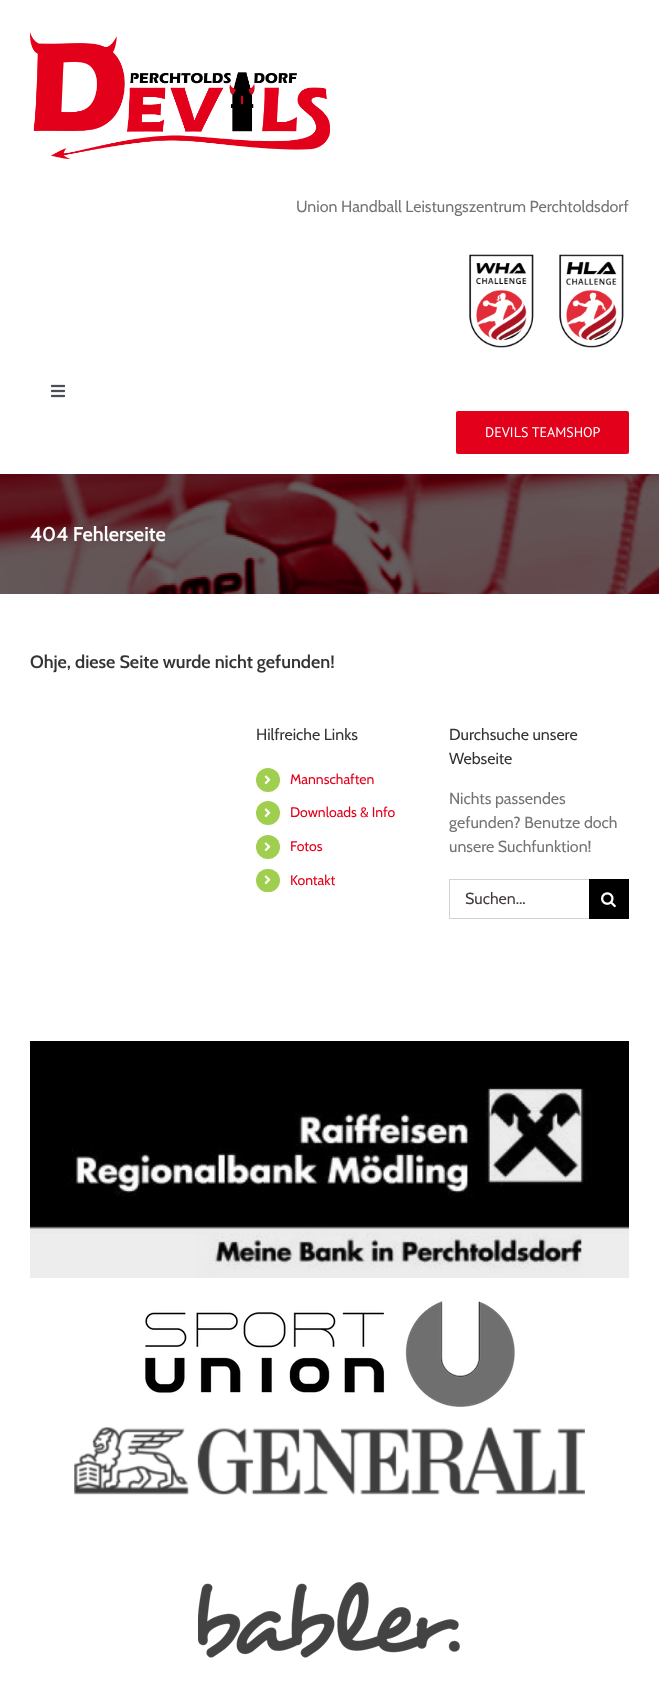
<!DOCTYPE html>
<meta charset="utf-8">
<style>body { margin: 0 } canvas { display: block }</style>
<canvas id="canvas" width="659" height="1700"></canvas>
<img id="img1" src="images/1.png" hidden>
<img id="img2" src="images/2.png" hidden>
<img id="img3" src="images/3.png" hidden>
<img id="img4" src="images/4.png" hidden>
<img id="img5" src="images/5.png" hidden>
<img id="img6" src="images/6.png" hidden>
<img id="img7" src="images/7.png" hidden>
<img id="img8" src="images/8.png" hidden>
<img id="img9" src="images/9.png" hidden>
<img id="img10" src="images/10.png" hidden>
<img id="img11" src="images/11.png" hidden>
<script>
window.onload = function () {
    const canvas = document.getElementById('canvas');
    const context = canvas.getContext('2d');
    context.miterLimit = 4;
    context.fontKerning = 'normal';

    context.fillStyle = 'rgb(255, 255, 255)';
    context.fillRect(0, 0, 659, 1700);
    context.drawImage(document.getElementById('img1'), 30, 32, 300, 127);
    context.drawImage(document.getElementById('img2'), 469, 254, 65, 94);
    context.drawImage(document.getElementById('img3'), 559, 254, 65, 94);
    context.drawImage(document.getElementById('img4'), 51, 384, 14, 14);
    context.fillStyle = 'rgb(226, 0, 26)';
    context.beginPath();
    context.roundRect(456, 411, 173, 43, 2);
    context.fill();
    context.drawImage(document.getElementById('img5'), 0, 474, 659, 120);
    context.fillStyle = 'rgb(160, 206, 78)';
    context.beginPath();
    context.arc(268, 780, 12, 0, 2 * Math.PI);
    context.fill();
    context.drawImage(document.getElementById('img6'), 264, 775, 7, 10);
    context.beginPath();
    context.arc(268, 813, 12, 0, 2 * Math.PI);
    context.fill();
    context.drawImage(document.getElementById('img6'), 264, 808, 7, 10);
    context.beginPath();
    context.arc(268, 847, 12, 0, 2 * Math.PI);
    context.fill();
    context.drawImage(document.getElementById('img6'), 264, 842, 7, 10);
    context.beginPath();
    context.roundRect(256, 869, 24, 23, 11.5);
    context.fill();
    context.drawImage(document.getElementById('img6'), 264, 875, 7, 10);
    context.fillStyle = 'rgb(210, 210, 210)';
    context.fillRect(449, 879, 140, 1);
    context.fillRect(449, 918, 140, 1);
    context.fillRect(449, 879, 1, 40);
    context.fillStyle = 'rgb(0, 0, 0)';
    context.fillRect(589, 879, 40, 40);
    context.drawImage(document.getElementById('img7'), 601, 892, 15, 16);
    context.drawImage(document.getElementById('img8'), 30, 1041, 599, 237);
    context.drawImage(document.getElementById('img9'), 145, 1301, 370, 106);
    context.drawImage(document.getElementById('img10'), 74, 1427, 511, 68);
    context.drawImage(document.getElementById('img11'), 198, 1582, 262, 76);
    context.font = '16px Cabin';
    context.fillStyle = 'rgb(116, 116, 116)';
    context.fillText('Union Handball Leistungszentrum Perchtoldsdorf', 296, 212);
    context.font = '14px PT Sans';
    context.fillStyle = 'rgb(255, 255, 255)';
    context.fillText('DEVILS TEAMSHOP', 485, 437);
    context.font = '600 20px Cabin';
    context.fillText('404 Fehlerseite', 30, 541);
    context.font = '600 18px Cabin';
    context.fillStyle = 'rgb(51, 51, 51)';
    context.fillText('Ohje, diese Seite wurde nicht gefunden!', 30, 668);
    context.font = '16px Cabin';
    context.fillText('Hilfreiche Links', 256, 740);
    context.font = '14px Cabin';
    context.fillStyle = 'rgb(226, 0, 26)';
    context.fillText('Mannschaften', 290, 784);
    context.fillText('Downloads & Info', 290, 817);
    context.fillText('Fotos', 290, 851);
    context.fillText('Kontakt', 290, 885);
    context.font = '16px Cabin';
    context.fillStyle = 'rgb(51, 51, 51)';
    context.fillText('Durchsuche unsere', 449, 740);
    context.fillText('Webseite', 449, 764);
    context.fillStyle = 'rgb(116, 116, 116)';
    context.fillText('Nichts passendes', 449, 804);
    context.fillText('gefunden? Benutze doch', 449, 828);
    context.fillText('unsere Suchfunktion!', 449, 852);
    context.fillStyle = 'rgb(68, 59, 59)';
    context.fillText('Suchen...', 465, 904);
};
</script>
